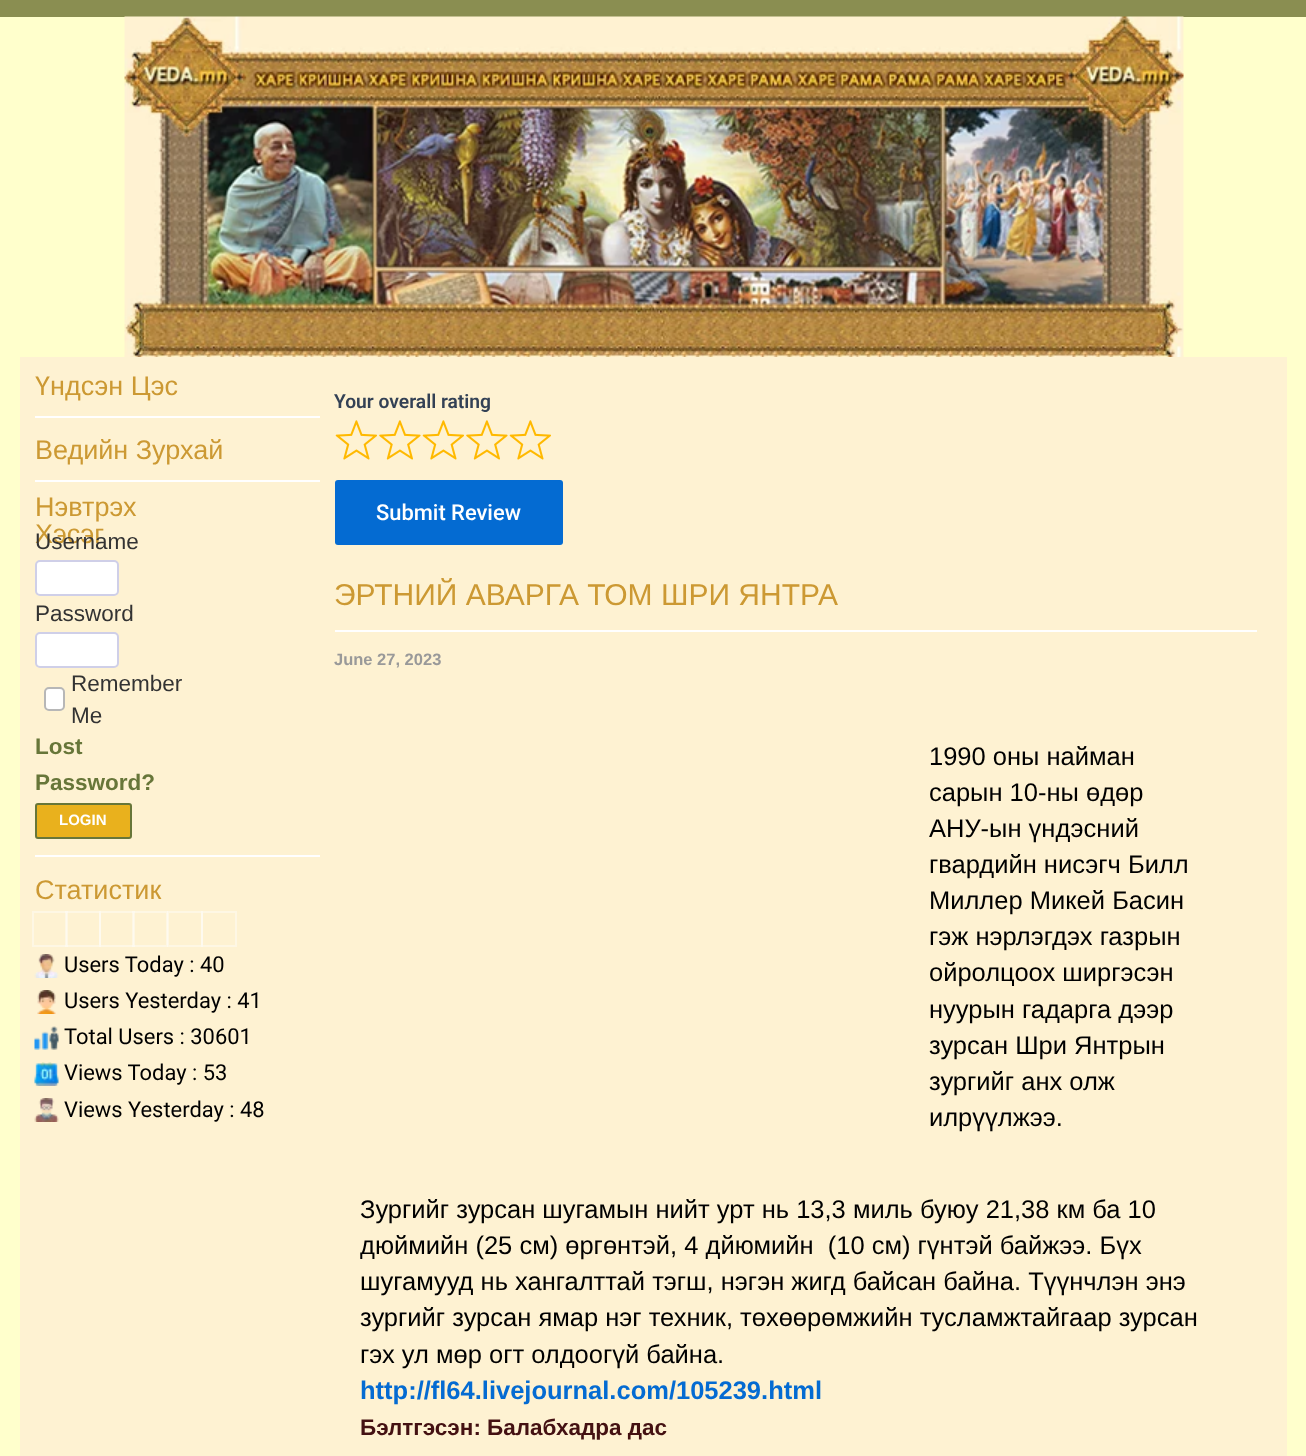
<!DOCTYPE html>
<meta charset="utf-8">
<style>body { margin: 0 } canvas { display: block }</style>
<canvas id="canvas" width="1306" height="1456"></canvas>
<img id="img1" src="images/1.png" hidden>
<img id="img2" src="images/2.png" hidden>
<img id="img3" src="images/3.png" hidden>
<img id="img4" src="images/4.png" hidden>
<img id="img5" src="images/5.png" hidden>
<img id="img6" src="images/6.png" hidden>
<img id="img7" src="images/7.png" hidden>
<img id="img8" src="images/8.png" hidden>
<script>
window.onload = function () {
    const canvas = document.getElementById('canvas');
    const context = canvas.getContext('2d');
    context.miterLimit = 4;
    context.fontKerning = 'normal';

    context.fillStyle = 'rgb(138, 142, 81)';
    context.fillRect(0, 0, 1306, 1456);
    context.fillStyle = 'rgb(255, 255, 204)';
    context.fillRect(0, 17, 1306, 1439);
    context.drawImage(document.getElementById('img1'), 124, 16, 1060, 341);
    context.fillStyle = 'rgb(254, 242, 210)';
    context.fillRect(20, 357, 1267, 1099);
    context.fillStyle = 'rgb(255, 255, 255)';
    context.fillRect(35, 416, 285, 2);
    context.fillRect(35, 480, 285, 2);
    context.beginPath();
    context.roundRect(36, 561, 82, 34, 4);
    context.fill();
    context.strokeStyle = 'rgb(207, 207, 232)';
    context.lineWidth = 2;
    context.stroke();
    context.beginPath();
    context.roundRect(36, 633, 82, 34, 4);
    context.fill();
    context.stroke();
    context.beginPath();
    context.roundRect(45, 688, 19, 22, 4);
    context.fill();
    context.strokeStyle = 'rgb(183, 183, 183)';
    context.stroke();
    context.fillStyle = 'rgb(233, 177, 29)';
    context.beginPath();
    context.roundRect(36, 804, 95, 34, 2);
    context.fill();
    context.strokeStyle = 'rgb(103, 118, 57)';
    context.stroke();
    context.fillStyle = 'rgb(255, 255, 255)';
    context.fillRect(35, 855, 285, 2);
    context.strokeStyle = 'rgb(254, 247, 228)';
    context.strokeRect(33, 912, 34, 34);
    context.strokeStyle = 'rgba(255, 255, 255, 0.4)';
    context.strokeRect(66, 912, 34, 34);
    context.strokeRect(100, 912, 34, 34);
    context.strokeRect(133, 912, 34, 34);
    context.strokeRect(168, 912, 34, 34);
    context.strokeRect(202, 912, 34, 34);
    context.drawImage(document.getElementById('img2'), 34, 954, 25, 24);
    context.drawImage(document.getElementById('img3'), 37, 990, 19, 24);
    context.drawImage(document.getElementById('img4'), 34, 1026, 25, 24);
    context.drawImage(document.getElementById('img5'), 34, 1062, 25, 24);
    context.drawImage(document.getElementById('img6'), 34, 1098, 25, 24);
    context.drawImage(document.getElementById('img7'), 335, 420, 42, 40);
    context.drawImage(document.getElementById('img8'), 379, 420, 42, 40);
    context.drawImage(document.getElementById('img7'), 422, 420, 42, 40);
    context.drawImage(document.getElementById('img8'), 466, 420, 42, 40);
    context.drawImage(document.getElementById('img7'), 509, 420, 42, 40);
    context.fillStyle = 'rgb(4, 107, 210)';
    context.beginPath();
    context.roundRect(335, 480, 228, 65, 3);
    context.fill();
    context.fillStyle = 'rgb(255, 255, 255)';
    context.fillRect(335, 630, 922, 2);
    context.font = '27px Liberation Sans';
    context.fillStyle = 'rgb(204, 153, 51)';
    context.fillText('Үндсэн Цэс', 35, 395);
    context.fillText('Ведийн Зурхай', 35, 459);
    context.fillText('Нэвтрэх', 35, 516);
    context.fillText('Хэсэг', 35, 543);
    context.font = '22.5px Liberation Sans';
    context.fillStyle = 'rgb(51, 51, 51)';
    context.fillText('Username', 35, 549);
    context.fillText('Password', 35, 621);
    context.fillText('Remember', 71, 691);
    context.fillText('Me', 71, 723);
    context.font = 'bold 22.5px Liberation Sans';
    context.fillStyle = 'rgb(103, 118, 57)';
    context.fillText('Lost', 35, 754);
    context.fillText('Password?', 35, 790);
    context.font = 'bold 15px Liberation Sans';
    context.fillStyle = 'rgb(255, 255, 255)';
    context.fillText('LOGIN', 59, 825);
    context.font = '27px Liberation Sans';
    context.fillStyle = 'rgb(204, 153, 51)';
    context.fillText('Статистик', 35, 899);
    context.font = '21.9px Roboto';
    context.fillStyle = 'rgb(0, 0, 0)';
    context.fillText('Users Today : 40', 64, 972);
    context.fillText('Users Yesterday : 41', 64, 1008);
    context.fillText('Total Users : 30601', 64, 1044);
    context.fillText('Views Today : 53', 64, 1080);
    context.fillText('Views Yesterday : 48', 64, 1117);
    context.font = '600 19.25px Roboto';
    context.fillStyle = 'rgb(51, 65, 85)';
    context.fillText('Your overall rating', 334, 408);
    context.font = '500 21.9px Roboto';
    context.fillStyle = 'rgb(255, 255, 255)';
    context.fillText('Submit Review', 376, 520);
    context.font = '30px Liberation Sans';
    context.fillStyle = 'rgb(204, 153, 51)';
    context.fillText('ЭРТНИЙ АВАРГА ТОМ ШРИ ЯНТРА', 334, 605);
    context.font = 'bold 16.5px Liberation Sans';
    context.fillStyle = 'rgb(153, 153, 153)';
    context.fillText('June 27, 2023', 334, 665);
    context.font = '25.5px Liberation Sans';
    context.fillStyle = 'rgb(0, 0, 0)';
    context.fillText('1990 оны найман', 929, 765);
    context.fillText('сарын 10-ны өдөр', 929, 801);
    context.fillText('АНУ-ын үндэсний', 929, 837);
    context.fillText('гвардийн нисэгч Билл', 929, 873);
    context.fillText('Миллер Микей Басин', 929, 909);
    context.fillText('гэж нэрлэгдэх газрын', 929, 945);
    context.fillText('ойролцоох ширгэсэн', 929, 981);
    context.fillText('нуурын гадарга дээр', 929, 1018);
    context.fillText('зурсан Шри Янтрын', 929, 1054);
    context.fillText('зургийг анх олж', 929, 1090);
    context.fillText('илрүүлжээ.', 929, 1126);
    context.fillText('Зургийг зурсан шугамын нийт урт нь 13,3 миль буюу 21,38 км ба 10', 360, 1218);
    context.fillText('дюймийн (25 см) өргөнтэй, 4 дйюмийн  (10 см) гүнтэй байжээ. Бүх', 360, 1254);
    context.fillText('шугамууд нь хангалттай тэгш, нэгэн жигд байсан байна. Түүнчлэн энэ', 360, 1290);
    context.fillText('зургийг зурсан ямар нэг техник, төхөөрөмжийн тусламжтайгаар зурсан', 360, 1326);
    context.fillText('гэх ул мөр огт олдоогүй байна.', 360, 1363);
    context.font = 'bold 25.5px Liberation Sans';
    context.fillStyle = 'rgb(4, 107, 210)';
    context.fillText('http://fl64.livejournal.com/105239.html', 360, 1399);
    context.font = 'bold 22.5px Liberation Sans';
    context.fillStyle = 'rgb(68, 17, 18)';
    context.fillText('Бэлтгэсэн: Балабхадра дас', 360, 1435);
};
</script>
